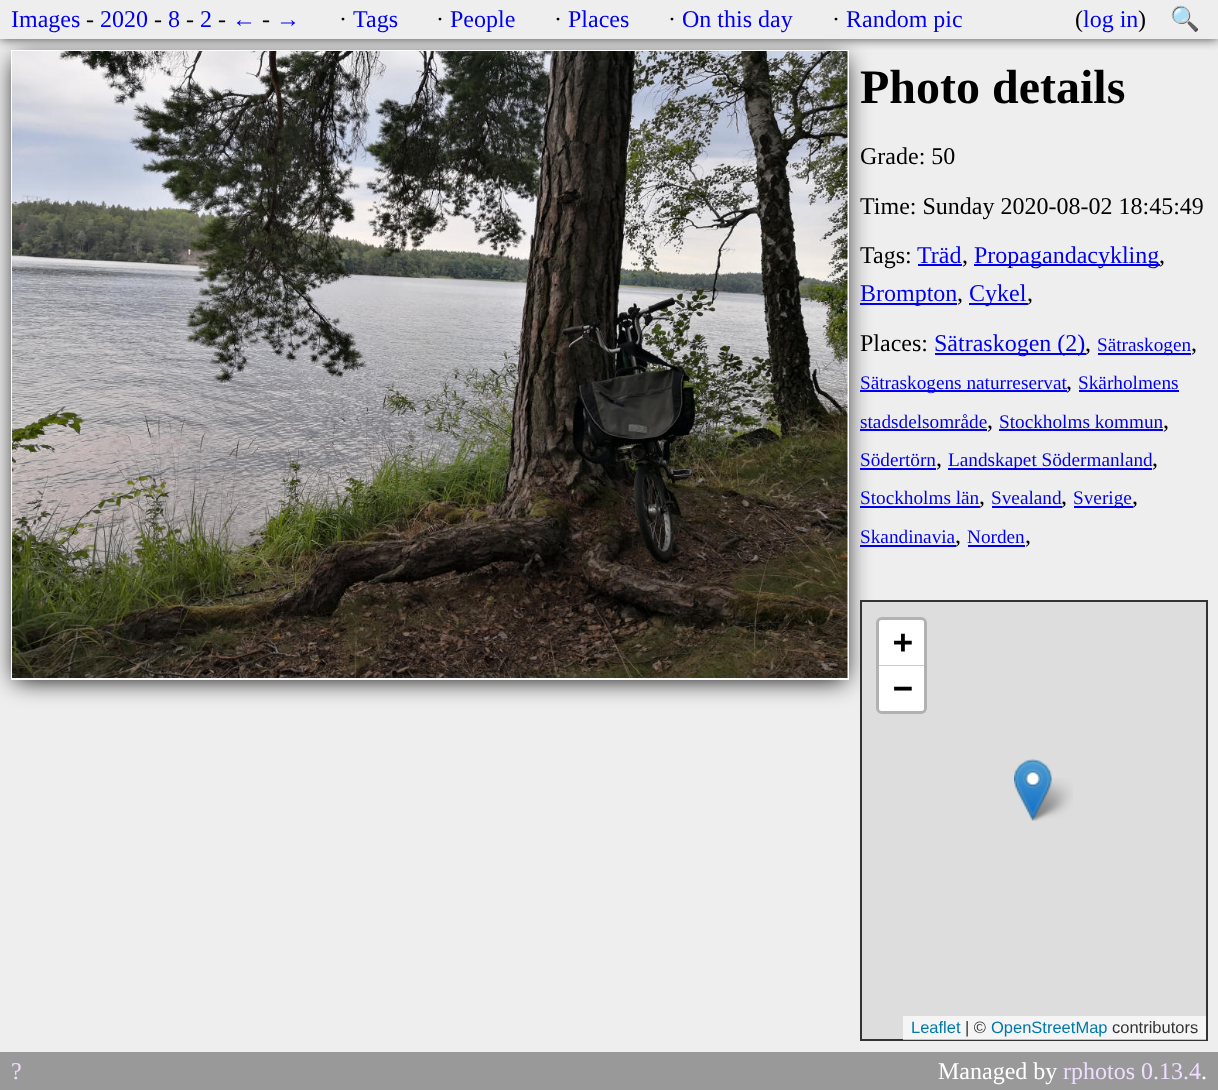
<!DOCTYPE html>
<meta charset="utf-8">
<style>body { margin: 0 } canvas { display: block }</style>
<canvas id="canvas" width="1218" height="1090"></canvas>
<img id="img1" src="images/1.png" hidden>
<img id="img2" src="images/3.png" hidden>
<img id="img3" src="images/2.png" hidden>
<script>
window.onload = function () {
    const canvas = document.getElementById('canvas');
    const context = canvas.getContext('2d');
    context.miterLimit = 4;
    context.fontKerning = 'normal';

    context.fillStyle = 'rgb(238, 238, 238)';
    context.fillRect(0, 0, 1218, 1090);
    context.save();
    context.beginPath();
    context.rect(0, 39, 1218, 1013);
    context.clip();
    context.fillStyle = 'rgb(0, 0, 0)';
    context.filter = 'blur(12px)';
    context.beginPath();
    context.rect(15, 59, 830, 621);
    context.fill();
    context.filter = 'none';
    context.restore();
    context.strokeStyle = 'rgb(255, 255, 255)';
    context.lineWidth = 2;
    context.strokeRect(12, 51, 836, 628);
    context.drawImage(document.getElementById('img1'), 12, 51, 836, 627);
    context.save();
    context.beginPath();
    context.rect(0, 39, 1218, 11);
    context.clip();
    context.fillStyle = 'rgb(68, 68, 68)';
    context.filter = 'blur(5.5px)';
    context.beginPath();
    context.rect(0, 0, 1218, 39);
    context.fill();
    context.filter = 'none';
    context.restore();
    context.fillStyle = 'rgb(0, 0, 238)';
    context.fillRect(918, 264, 44, 2);
    context.fillRect(974, 264, 186, 2);
    context.fillRect(860, 303, 97, 2);
    context.fillRect(969, 303, 59, 2);
    context.fillRect(935, 353, 151, 2);
    context.fillRect(1098, 353, 93, 2);
    context.fillRect(860, 390, 207, 2);
    context.fillRect(1079, 390, 100, 2);
    context.fillRect(860, 429, 127, 2);
    context.fillRect(999, 429, 164, 2);
    context.fillRect(860, 468, 76, 2);
    context.fillRect(948, 468, 204, 2);
    context.fillRect(860, 506, 120, 2);
    context.fillRect(992, 506, 70, 2);
    context.fillRect(1074, 506, 59, 2);
    context.fillRect(860, 545, 96, 2);
    context.fillRect(968, 545, 57, 2);
    context.fillStyle = 'rgb(221, 221, 221)';
    context.beginPath();
    context.rect(861, 601, 346, 439);
    context.fill();
    context.strokeStyle = 'rgb(51, 51, 51)';
    context.stroke();
    context.beginPath();
    context.roundRect(877.5, 618.5, 48, 94, 4.5);
    context.strokeStyle = 'rgb(177, 177, 177)';
    context.lineWidth = 3;
    context.stroke();
    context.fillStyle = 'rgb(255, 255, 255)';
    context.beginPath();
    context.roundRect(879, 620, 45, 46, [3, 3, 0, 0]);
    context.fill();
    context.fillStyle = 'rgb(204, 204, 204)';
    context.fillRect(879, 665, 45, 1);
    context.fillStyle = 'rgb(255, 255, 255)';
    context.beginPath();
    context.roundRect(879, 666, 45, 45, [0, 0, 3, 3]);
    context.fill();
    context.fillStyle = 'rgba(255, 255, 255, 0.7)';
    context.fillRect(903, 1016, 303, 24);
    context.drawImage(document.getElementById('img2'), 1027, 778, 46, 43);
    context.drawImage(document.getElementById('img3'), 1014, 759, 38, 62);
    context.fillStyle = 'rgb(153, 153, 153)';
    context.fillRect(0, 1052, 1218, 38);
    context.font = '24px Liberation Serif';
    context.fillStyle = 'rgb(0, 0, 238)';
    context.fillText('Images', 11, 27);
    context.fillStyle = 'rgb(0, 0, 0)';
    context.fillText('-', 86, 27);
    context.fillStyle = 'rgb(0, 0, 238)';
    context.fillText('2020', 100, 27);
    context.fillStyle = 'rgb(0, 0, 0)';
    context.fillText('-', 154, 27);
    context.fillStyle = 'rgb(0, 0, 238)';
    context.fillText('8', 168, 27);
    context.fillStyle = 'rgb(0, 0, 0)';
    context.fillText('-', 186, 27);
    context.fillStyle = 'rgb(0, 0, 238)';
    context.fillText('2', 200, 27);
    context.fillStyle = 'rgb(0, 0, 0)';
    context.fillText('-', 218, 27);
    context.fillStyle = 'rgb(0, 0, 238)';
    context.fillText('←', 232, 27);
    context.fillStyle = 'rgb(0, 0, 0)';
    context.fillText('-', 262, 27);
    context.fillStyle = 'rgb(0, 0, 238)';
    context.fillText('→', 276, 27);
    context.fillStyle = 'rgb(0, 0, 0)';
    context.fillText('·', 339, 27);
    context.fillStyle = 'rgb(0, 0, 238)';
    context.fillText('Tags', 353, 27);
    context.fillStyle = 'rgb(0, 0, 0)';
    context.fillText('·', 436, 27);
    context.fillStyle = 'rgb(0, 0, 238)';
    context.fillText('People', 450, 27);
    context.fillStyle = 'rgb(0, 0, 0)';
    context.fillText('·', 554, 27);
    context.fillStyle = 'rgb(0, 0, 238)';
    context.fillText('Places', 568, 27);
    context.fillStyle = 'rgb(0, 0, 0)';
    context.fillText('·', 668, 27);
    context.fillStyle = 'rgb(0, 0, 238)';
    context.fillText('On this day', 682, 27);
    context.fillStyle = 'rgb(0, 0, 0)';
    context.fillText('·', 832, 27);
    context.fillStyle = 'rgb(0, 0, 238)';
    context.fillText('Random pic', 846, 27);
    context.fillStyle = 'rgb(0, 0, 0)';
    context.fillText('(', 1075, 27);
    context.fillStyle = 'rgb(0, 0, 238)';
    context.fillText('log in', 1083, 27);
    context.fillStyle = 'rgb(0, 0, 0)';
    context.fillText(')', 1138, 27);
    context.font = '24px Noto Color Emoji';
    context.fillText('🔍', 1170, 27);
    context.font = 'bold 48px Liberation Serif';
    context.fillText('Photo details', 860, 103);
    context.font = '24px Liberation Serif';
    context.fillText('Grade: 50', 860, 164);
    context.fillText('Time: Sunday 2020-08-02 18:45:49', 860, 214);
    context.fillText('Tags:', 860, 263);
    context.fillStyle = 'rgb(0, 0, 238)';
    context.fillText('Träd', 917, 263);
    context.fillStyle = 'rgb(0, 0, 0)';
    context.fillText(',', 962, 263);
    context.fillStyle = 'rgb(0, 0, 238)';
    context.fillText('Propagandacykling', 974, 263);
    context.fillStyle = 'rgb(0, 0, 0)';
    context.fillText(',', 1159, 263);
    context.fillStyle = 'rgb(0, 0, 238)';
    context.fillText('Brompton', 860, 301);
    context.fillStyle = 'rgb(0, 0, 0)';
    context.fillText(',', 957, 301);
    context.fillStyle = 'rgb(0, 0, 238)';
    context.fillText('Cykel', 969, 301);
    context.fillStyle = 'rgb(0, 0, 0)';
    context.fillText(',', 1027, 301);
    context.fillText('Places:', 860, 351);
    context.fillStyle = 'rgb(0, 0, 238)';
    context.fillText('Sätraskogen (2)', 934, 351);
    context.fillStyle = 'rgb(0, 0, 0)';
    context.fillText(',', 1085, 351);
    context.font = '19.25px Liberation Serif';
    context.fillStyle = 'rgb(0, 0, 238)';
    context.fillText('Sätraskogen', 1097, 351);
    context.font = '24px Liberation Serif';
    context.fillStyle = 'rgb(0, 0, 0)';
    context.fillText(',', 1191, 351);
    context.font = '19.25px Liberation Serif';
    context.fillStyle = 'rgb(0, 0, 238)';
    context.fillText('Sätraskogens naturreservat', 860, 389);
    context.font = '24px Liberation Serif';
    context.fillStyle = 'rgb(0, 0, 0)';
    context.fillText(',', 1066, 389);
    context.font = '19.25px Liberation Serif';
    context.fillStyle = 'rgb(0, 0, 238)';
    context.fillText('Skärholmens', 1078, 389);
    context.fillText('stadsdelsområde', 860, 428);
    context.font = '24px Liberation Serif';
    context.fillStyle = 'rgb(0, 0, 0)';
    context.fillText(',', 987, 428);
    context.font = '19.25px Liberation Serif';
    context.fillStyle = 'rgb(0, 0, 238)';
    context.fillText('Stockholms kommun', 999, 428);
    context.font = '24px Liberation Serif';
    context.fillStyle = 'rgb(0, 0, 0)';
    context.fillText(',', 1163, 428);
    context.font = '19.25px Liberation Serif';
    context.fillStyle = 'rgb(0, 0, 238)';
    context.fillText('Södertörn', 860, 466);
    context.font = '24px Liberation Serif';
    context.fillStyle = 'rgb(0, 0, 0)';
    context.fillText(',', 936, 466);
    context.font = '19.25px Liberation Serif';
    context.fillStyle = 'rgb(0, 0, 238)';
    context.fillText('Landskapet Södermanland', 948, 466);
    context.font = '24px Liberation Serif';
    context.fillStyle = 'rgb(0, 0, 0)';
    context.fillText(',', 1152, 466);
    context.font = '19.25px Liberation Serif';
    context.fillStyle = 'rgb(0, 0, 238)';
    context.fillText('Stockholms län', 860, 504);
    context.font = '24px Liberation Serif';
    context.fillStyle = 'rgb(0, 0, 0)';
    context.fillText(',', 979, 504);
    context.font = '19.25px Liberation Serif';
    context.fillStyle = 'rgb(0, 0, 238)';
    context.fillText('Svealand', 991, 504);
    context.font = '24px Liberation Serif';
    context.fillStyle = 'rgb(0, 0, 0)';
    context.fillText(',', 1061, 504);
    context.font = '19.25px Liberation Serif';
    context.fillStyle = 'rgb(0, 0, 238)';
    context.fillText('Sverige', 1073, 504);
    context.font = '24px Liberation Serif';
    context.fillStyle = 'rgb(0, 0, 0)';
    context.fillText(',', 1132, 504);
    context.font = '19.25px Liberation Serif';
    context.fillStyle = 'rgb(0, 0, 238)';
    context.fillText('Skandinavia', 860, 543);
    context.font = '24px Liberation Serif';
    context.fillStyle = 'rgb(0, 0, 0)';
    context.fillText(',', 955, 543);
    context.font = '19.25px Liberation Serif';
    context.fillStyle = 'rgb(0, 0, 238)';
    context.fillText('Norden', 967, 543);
    context.font = '24px Liberation Serif';
    context.fillStyle = 'rgb(0, 0, 0)';
    context.fillText(',', 1025, 543);
    context.font = 'bold 33px DejaVu Sans Mono';
    context.fillText('+', 893, 653);
    context.fillText('−', 893, 699);
    context.font = '16.5px Liberation Sans';
    context.fillStyle = 'rgb(0, 120, 168)';
    context.fillText('Leaflet', 911, 1033);
    context.fillStyle = 'rgb(51, 51, 51)';
    context.fillText('| ©', 965, 1033);
    context.fillStyle = 'rgb(0, 120, 168)';
    context.fillText('OpenStreetMap', 991, 1033);
    context.fillStyle = 'rgb(51, 51, 51)';
    context.fillText('contributors', 1112, 1033);
    context.font = '24px Liberation Serif';
    context.fillStyle = 'rgb(238, 221, 255)';
    context.fillText('?', 11, 1079);
    context.fillStyle = 'rgb(255, 255, 255)';
    context.fillText('Managed by', 938, 1079);
    context.fillStyle = 'rgb(238, 221, 255)';
    context.fillText('rphotos 0.13.4', 1063, 1079);
    context.fillStyle = 'rgb(255, 255, 255)';
    context.fillText('.', 1201, 1079);
};
</script>
